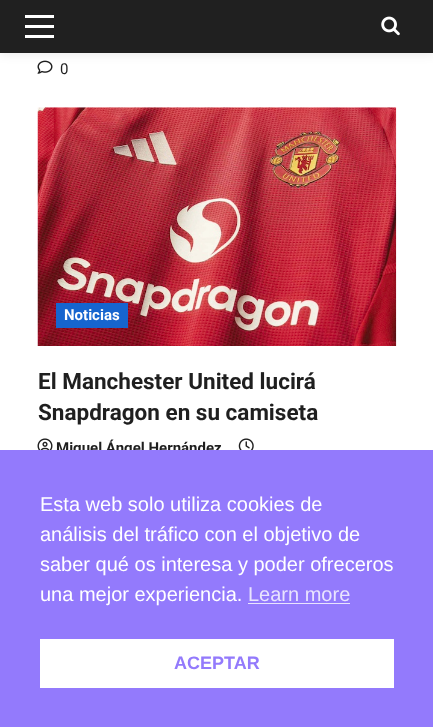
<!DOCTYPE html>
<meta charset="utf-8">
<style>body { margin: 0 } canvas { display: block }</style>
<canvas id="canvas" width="433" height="727"></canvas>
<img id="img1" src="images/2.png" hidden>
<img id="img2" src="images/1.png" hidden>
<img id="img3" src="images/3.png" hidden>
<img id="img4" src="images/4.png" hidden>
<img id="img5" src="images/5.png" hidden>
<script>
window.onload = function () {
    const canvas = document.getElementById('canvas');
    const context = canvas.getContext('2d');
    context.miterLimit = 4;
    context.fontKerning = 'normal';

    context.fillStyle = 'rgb(255, 255, 255)';
    context.fillRect(0, 0, 433, 727);
    context.drawImage(document.getElementById('img1'), 37, 60, 16, 14);
    context.fillStyle = 'rgba(0, 0, 0, 0.08)';
    context.filter = 'blur(5px)';
    context.beginPath();
    context.rect(0, 3, 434, 52);
    context.fill();
    context.filter = 'none';
    context.fillStyle = 'rgb(32, 32, 32)';
    context.fillRect(0, 0, 433, 53);
    context.fillStyle = 'rgb(255, 255, 255)';
    context.fillRect(25, 25, 29, 3);
    context.fillRect(25, 15, 29, 3);
    context.fillRect(25, 35, 29, 3);
    context.drawImage(document.getElementById('img2'), 381, 16, 19, 20);
    context.drawImage(document.getElementById('img3'), 37, 107, 360, 239);
    context.fillStyle = 'rgb(22, 101, 207)';
    context.fillRect(56, 303, 72, 25);
    context.drawImage(document.getElementById('img4'), 37, 438, 16, 12);
    context.drawImage(document.getElementById('img5'), 238, 438, 16, 12);
    context.font = '15px Roboto';
    context.fillStyle = 'rgb(31, 31, 31)';
    context.fillText('0', 60, 74);
    context.font = 'bold 15px Roboto';
    context.fillStyle = 'rgb(255, 255, 255)';
    context.fillText('Noticias', 64, 320);
    context.font = 'bold 22.5px Roboto';
    context.fillStyle = 'rgb(31, 31, 31)';
    context.fillText('El Manchester United lucirá', 38, 389);
    context.fillText('Snapdragon en su camiseta', 38, 420);
    context.font = 'bold 15px Roboto';
    context.fillText('Miguel Ángel Hernández', 56, 453);
    context.fillStyle = 'rgb(147, 122, 252)';
    context.fillRect(0, 450, 433, 277);
    context.font = '20px Liberation Sans';
    context.fillStyle = 'rgb(255, 255, 255)';
    context.fillText('Esta web solo utiliza cookies de', 40, 511);
    context.fillText('análisis del tráfico con el objetivo de', 40, 541);
    context.fillText('saber qué os interesa y poder ofreceros', 40, 571);
    context.fillText('una mejor experiencia.', 40, 601);
    context.fillStyle = 'rgb(233, 228, 254)';
    context.fillText('Learn more', 248, 601);
    context.fillRect(248, 603, 102, 1);
    context.fillStyle = 'rgb(255, 255, 255)';
    context.fillRect(40, 639, 354, 49);
    context.font = 'bold 18px Liberation Sans';
    context.fillStyle = 'rgb(147, 122, 252)';
    context.fillText('ACEPTAR', 174, 669);
};
</script>
